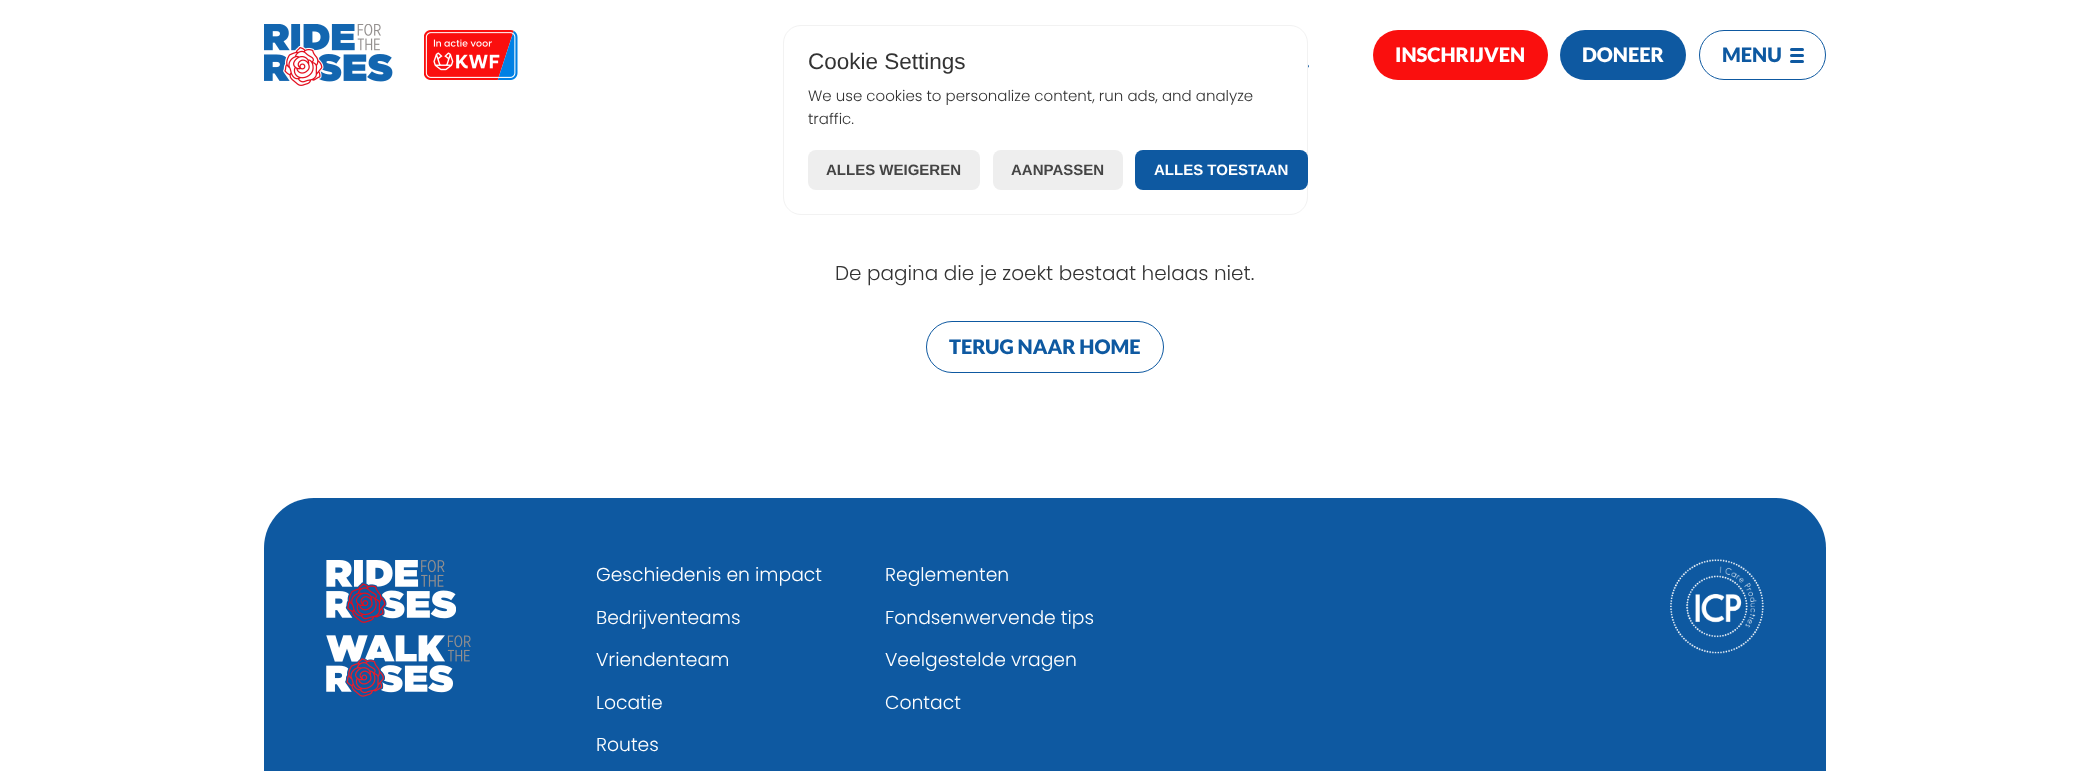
<!DOCTYPE html>
<meta charset="utf-8">
<style>body { margin: 0 } canvas { display: block }</style>
<canvas id="canvas" width="2090" height="771"></canvas>
<img id="img1" src="images/1.png" hidden>
<img id="img2" src="images/2.png" hidden>
<img id="img3" src="images/3.png" hidden>
<img id="img4" src="images/4.png" hidden>
<img id="img5" src="images/5.png" hidden>
<img id="img6" src="images/6.png" hidden>
<script>
window.onload = function () {
    const canvas = document.getElementById('canvas');
    const context = canvas.getContext('2d');
    context.miterLimit = 4;
    context.fontKerning = 'normal';

    context.fillStyle = 'rgb(255, 255, 255)';
    context.fillRect(0, 0, 2090, 771);
    context.drawImage(document.getElementById('img1'), 264, 24, 129, 62);
    context.drawImage(document.getElementById('img2'), 424, 30, 94, 50);
    context.fillStyle = 'rgb(250, 15, 14)';
    context.beginPath();
    context.roundRect(1373, 30, 175, 50, 25);
    context.fill();
    context.fillStyle = 'rgb(14, 89, 161)';
    context.beginPath();
    context.roundRect(1560, 30, 126, 50, 25);
    context.fill();
    context.beginPath();
    context.roundRect(1699.5, 30.5, 126, 49, 24.5);
    context.strokeStyle = 'rgb(14, 89, 161)';
    context.stroke();
    context.beginPath();
    context.roundRect(1790, 48, 14, 3, 1.5);
    context.fill();
    context.beginPath();
    context.roundRect(1790, 54, 14, 3, 1.5);
    context.fill();
    context.beginPath();
    context.roundRect(1790, 60, 14, 3, 1.5);
    context.fill();
    context.drawImage(document.getElementById('img3'), 1308, 64, 1, 4);
    context.beginPath();
    context.roundRect(926.5, 321.5, 237, 51, 25.5);
    context.stroke();
    context.beginPath();
    context.roundRect(264, 498, 1562, 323, 50);
    context.fill();
    context.drawImage(document.getElementById('img4'), 326, 560, 130, 63);
    context.drawImage(document.getElementById('img5'), 326, 635, 145, 62);
    context.drawImage(document.getElementById('img6'), 1670, 559, 94, 95);
    context.beginPath();
    context.roundRect(783.5, 25.5, 524, 189, 17.5);
    context.strokeStyle = 'rgb(242, 242, 242)';
    context.stroke();
    context.fillStyle = 'rgb(238, 238, 238)';
    context.beginPath();
    context.roundRect(808, 150, 172, 40, 8);
    context.fill();
    context.beginPath();
    context.roundRect(993, 150, 130, 40, 8);
    context.fill();
    context.fillStyle = 'rgb(14, 89, 161)';
    context.beginPath();
    context.roundRect(1135, 150, 173, 40, 8);
    context.fill();
    context.font = '900 20px Lato';
    context.fillStyle = 'rgb(255, 255, 255)';
    context.fillText('INSCHRIJVEN', 1395, 62);
    context.fillText('DONEER', 1582, 62);
    context.fillStyle = 'rgb(14, 89, 161)';
    context.fillText('MENU', 1722, 62);
    context.font = '300 20px Poppins';
    context.fillStyle = 'rgb(51, 51, 51)';
    context.fillText('De pagina die je zoekt bestaat helaas niet.', 835, 280);
    context.font = '900 20px Lato';
    context.fillStyle = 'rgb(14, 89, 161)';
    context.fillText('TERUG NAAR HOME', 949, 354);
    context.font = '300 18.75px Poppins';
    context.fillStyle = 'rgb(255, 255, 255)';
    context.fillText('Geschiedenis en impact', 596, 581);
    context.fillText('Bedrijventeams', 596, 624);
    context.fillText('Vriendenteam', 596, 666);
    context.fillText('Locatie', 596, 709);
    context.fillText('Routes', 596, 751);
    context.fillText('Reglementen', 885, 581);
    context.fillText('Fondsenwervende tips', 885, 624);
    context.fillText('Veelgestelde vragen', 885, 666);
    context.fillText('Contact', 885, 709);
    context.font = '22.5px Liberation Sans';
    context.fillStyle = 'rgb(51, 51, 51)';
    context.fillText('Cookie Settings', 808, 69);
    context.font = '300 15px Poppins';
    context.fillText('We use cookies to personalize content, run ads, and analyze', 808, 101);
    context.fillText('traffic.', 808, 124);
    context.font = 'bold 15px Liberation Sans';
    context.fillStyle = 'rgb(68, 68, 68)';
    context.fillText('ALLES WEIGEREN', 826, 175);
    context.fillText('AANPASSEN', 1011, 175);
    context.fillStyle = 'rgb(255, 255, 255)';
    context.fillText('ALLES TOESTAAN', 1154, 175);
};
</script>
